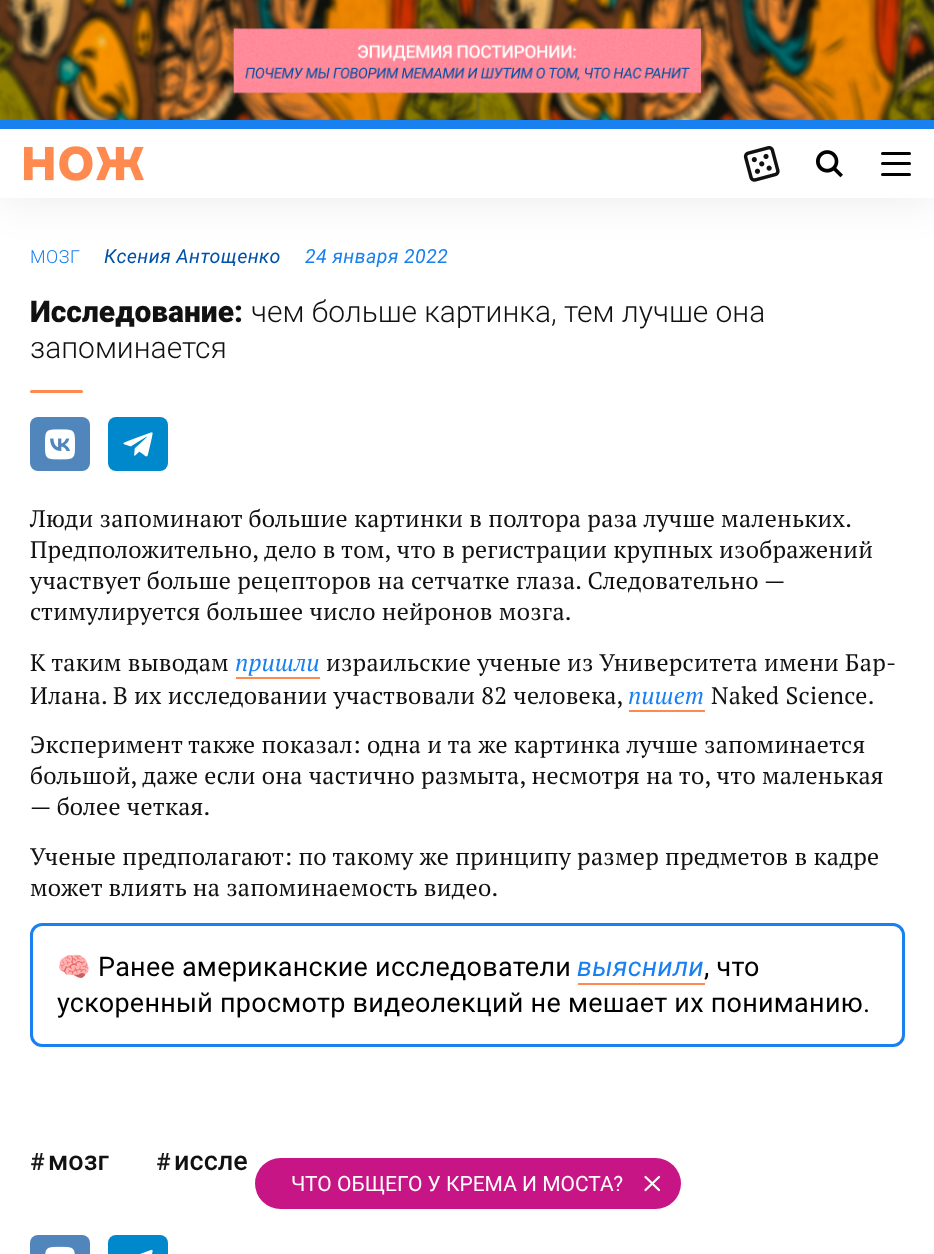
<!DOCTYPE html>
<meta charset="utf-8">
<style>body { margin: 0 } canvas { display: block }</style>
<canvas id="canvas" width="934" height="1254"></canvas>
<img id="img1" src="images/1.png" hidden>
<img id="img2" src="images/2.png" hidden>
<img id="img3" src="images/3.png" hidden>
<img id="img4" src="images/4.png" hidden>
<img id="img5" src="images/5.png" hidden>
<img id="img6" src="images/6.png" hidden>
<img id="img7" src="images/7.png" hidden>
<img id="img8" src="images/8.png" hidden>
<script>
window.onload = function () {
    const canvas = document.getElementById('canvas');
    const context = canvas.getContext('2d');
    context.miterLimit = 4;
    context.fontKerning = 'normal';

    context.fillStyle = 'rgb(255, 255, 255)';
    context.fillRect(0, 0, 934, 1254);
    context.drawImage(document.getElementById('img1'), 0, 0, 934, 120);
    context.fillStyle = 'rgba(0, 0, 0, 0.08)';
    context.filter = 'blur(22.5px)';
    context.beginPath();
    context.rect(0, 122, 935, 78);
    context.fill();
    context.filter = 'none';
    context.fillStyle = 'rgb(255, 255, 255)';
    context.fillRect(0, 129, 934, 69);
    context.fillStyle = 'rgb(25, 128, 239)';
    context.fillRect(0, 120, 934, 9);
    context.drawImage(document.getElementById('img2'), 24, 146, 120, 35);
    context.drawImage(document.getElementById('img3'), 743, 146, 37, 36);
    context.drawImage(document.getElementById('img4'), 816, 150, 27, 28);
    context.fillStyle = 'rgb(0, 0, 0)';
    context.beginPath();
    context.roundRect(881, 152, 30, 3, 1.5);
    context.fill();
    context.beginPath();
    context.roundRect(881, 162, 30, 3, 1.5);
    context.fill();
    context.beginPath();
    context.roundRect(881, 173, 30, 3, 1.5);
    context.fill();
    context.fillStyle = 'rgb(255, 138, 79)';
    context.beginPath();
    context.roundRect(30, 390, 53, 3, 1.5);
    context.fill();
    context.fillStyle = 'rgb(81, 134, 189)';
    context.beginPath();
    context.roundRect(30, 417, 60, 54, 8);
    context.fill();
    context.drawImage(document.getElementById('img5'), 45, 429, 30, 31);
    context.fillStyle = 'rgb(0, 136, 204)';
    context.beginPath();
    context.roundRect(108, 417, 60, 54, 8);
    context.fill();
    context.drawImage(document.getElementById('img6'), 123, 432, 30, 25);
    context.fillStyle = 'rgb(255, 138, 79)';
    context.fillRect(236, 677, 84, 2);
    context.fillRect(629, 710, 76, 2);
    context.beginPath();
    context.roundRect(31.5, 924.5, 872, 121, 10.5);
    context.strokeStyle = 'rgb(25, 128, 239)';
    context.lineWidth = 3;
    context.stroke();
    context.fillRect(578, 983, 127, 2);
    context.fillStyle = 'rgb(81, 134, 189)';
    context.beginPath();
    context.roundRect(30, 1235, 60, 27, 8);
    context.fill();
    context.drawImage(document.getElementById('img7'), 45, 1246, 30, 8);
    context.fillStyle = 'rgb(0, 136, 204)';
    context.beginPath();
    context.roundRect(108, 1235, 60, 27, 8);
    context.fill();
    context.drawImage(document.getElementById('img8'), 140, 1249, 13, 5);
    context.fillStyle = 'rgb(199, 21, 133)';
    context.beginPath();
    context.roundRect(255, 1158, 426, 51, 25.5);
    context.fill();
    context.beginPath();
    context.moveTo(659, 1177);
    context.lineTo(645.5, 1190);
    context.moveTo(645.5, 1177);
    context.lineTo(659, 1190);
    context.strokeStyle = 'rgb(255, 255, 255)';
    context.lineWidth = 2.2;
    context.lineCap = 'round';
    context.lineJoin = 'round';
    context.stroke();
    context.letterSpacing = '0.5px';
    context.font = '300 18px Roboto';
    context.fillStyle = 'rgb(25, 128, 239)';
    context.fillText('МОЗГ', 30, 263);
    context.letterSpacing = '0.4px';
    context.font = 'italic 19.5px Roboto';
    context.fillStyle = 'rgb(0, 81, 169)';
    context.fillText('Ксения Антощенко', 104, 263);
    context.fillStyle = 'rgb(25, 128, 239)';
    context.fillText('24 января 2022', 305, 263);
    context.letterSpacing = '0px';
    context.font = '900 30px Roboto';
    context.fillStyle = 'rgb(17, 17, 17)';
    context.fillText('Исследование:', 30, 322);
    context.font = '300 30px Roboto';
    context.fillText('чем больше картинка, тем лучше она', 251, 322);
    context.fillText('запоминается', 30, 358);
    context.letterSpacing = '0.25px';
    context.font = '24px PT Serif';
    context.fillText('Люди запоминают большие картинки в полтора раза лучше маленьких.', 30, 527);
    context.fillText('Предположительно, дело в том, что в регистрации крупных изображений', 30, 558);
    context.fillText('участвует больше рецепторов на сетчатке глаза. Следовательно —', 30, 589);
    context.fillText('стимулируется большее число нейронов мозга.', 30, 620);
    context.fillText('К таким выводам', 30, 671);
    context.font = 'italic 24px PT Serif';
    context.fillStyle = 'rgb(25, 128, 239)';
    context.fillText('пришли', 235, 671);
    context.font = '24px PT Serif';
    context.fillStyle = 'rgb(17, 17, 17)';
    context.fillText('израильские ученые из Университета имени Бар-', 326, 671);
    context.fillText('Илана. В их исследовании участвовали 82 человека,', 30, 704);
    context.font = 'italic 24px PT Serif';
    context.fillStyle = 'rgb(25, 128, 239)';
    context.fillText('пишет', 628, 704);
    context.font = '24px PT Serif';
    context.fillStyle = 'rgb(17, 17, 17)';
    context.fillText('Naked Science.', 711, 704);
    context.fillText('Эксперимент также показал: одна и та же картинка лучше запоминается', 30, 753);
    context.fillText('большой, даже если она частично размыта, несмотря на то, что маленькая', 30, 784);
    context.fillText('— более четкая.', 30, 815);
    context.fillText('Ученые предполагают: по такому же принципу размер предметов в кадре', 30, 865);
    context.fillText('может влиять на запоминаемость видео.', 30, 896);
    context.font = '27px Noto Color Emoji';
    context.fillStyle = 'rgb(0, 0, 0)';
    context.fillText('🧠', 57, 976);
    context.font = '27px Roboto';
    context.fillText('Ранее американские исследователи', 98, 976);
    context.font = 'italic 27px Roboto';
    context.fillStyle = 'rgb(25, 128, 239)';
    context.fillText('выяснили', 577, 976);
    context.font = '27px Roboto';
    context.fillStyle = 'rgb(0, 0, 0)';
    context.fillText(', что', 704, 976);
    context.fillText('ускоренный просмотр видеолекций не мешает их пониманию.', 57, 1012);
    context.letterSpacing = '0px';
    context.font = '500 24px Roboto';
    context.fillStyle = 'rgb(26, 26, 26)';
    context.fillText('#', 30, 1170);
    context.font = '500 27px Roboto';
    context.fillStyle = 'rgb(17, 17, 17)';
    context.fillText('мозг', 48, 1170);
    context.font = '500 24px Roboto';
    context.fillStyle = 'rgb(26, 26, 26)';
    context.fillText('#', 156, 1170);
    context.font = '500 27px Roboto';
    context.fillStyle = 'rgb(17, 17, 17)';
    context.fillText('иссле', 174, 1170);
    context.font = '21px Roboto';
    context.fillStyle = 'rgb(255, 255, 255)';
    context.fillText('ЧТО ОБЩЕГО У КРЕМА И МОСТА?', 291, 1191);
};
</script>
